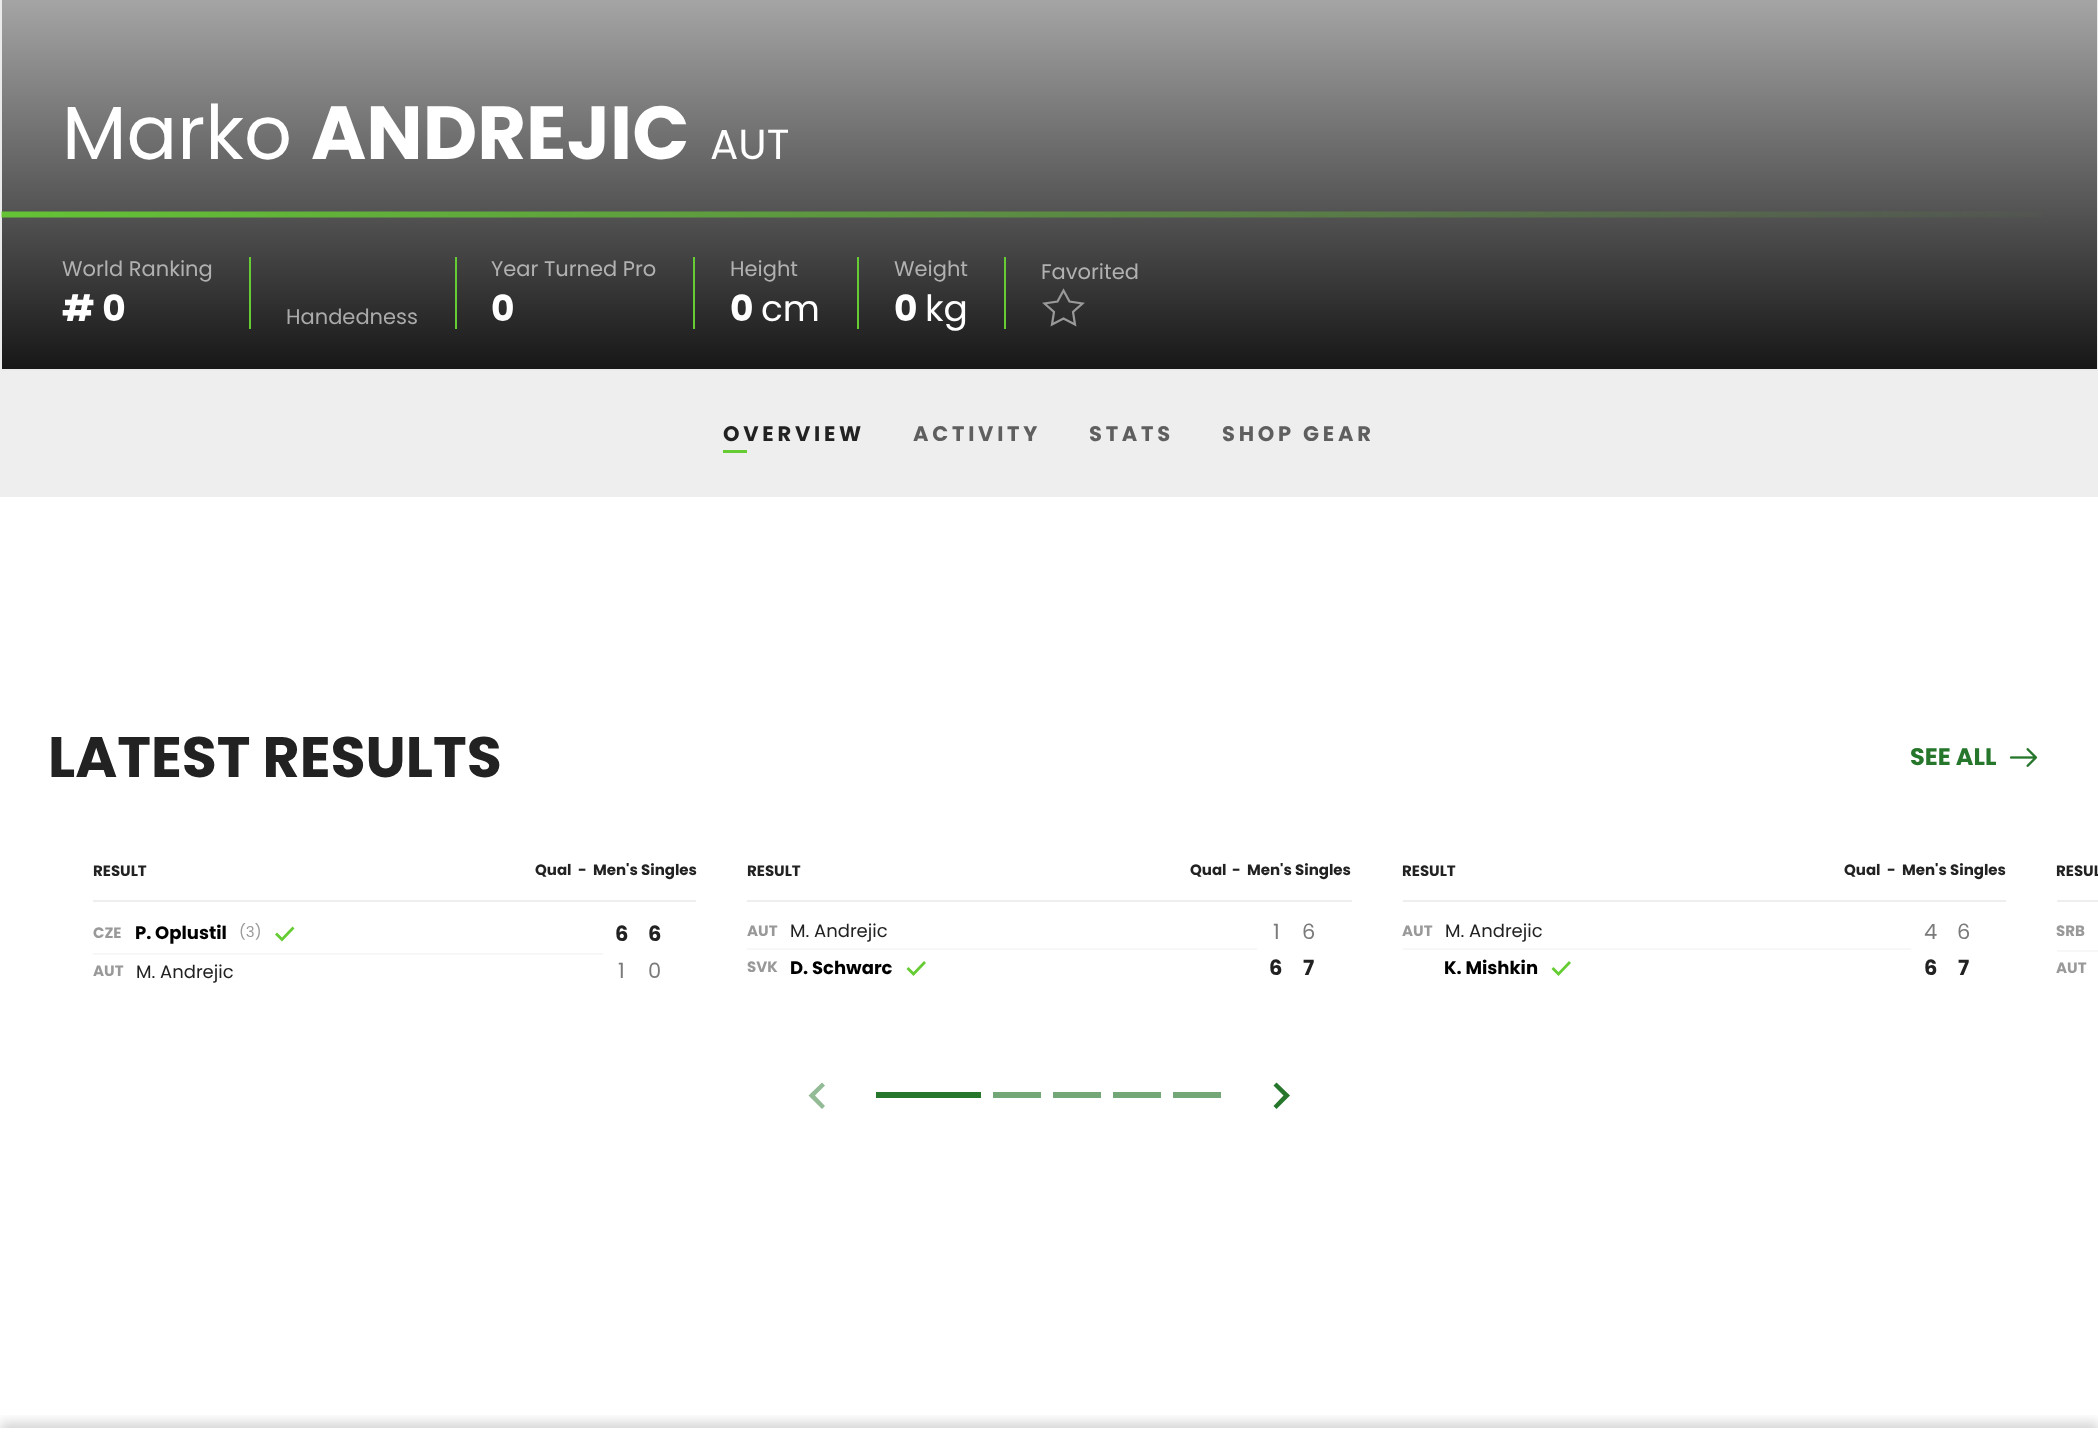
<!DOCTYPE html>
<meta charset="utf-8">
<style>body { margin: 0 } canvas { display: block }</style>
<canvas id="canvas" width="2098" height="1441"></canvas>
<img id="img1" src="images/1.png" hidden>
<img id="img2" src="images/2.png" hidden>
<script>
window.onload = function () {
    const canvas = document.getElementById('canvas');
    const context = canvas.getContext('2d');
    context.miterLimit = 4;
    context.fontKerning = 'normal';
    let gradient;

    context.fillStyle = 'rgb(255, 255, 255)';
    context.fillRect(0, 0, 2098, 1441);
    context.strokeStyle = 'rgb(235, 235, 235)';
    context.lineWidth = 2;
    context.strokeRect(1, -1, 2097, 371);
    gradient = context.createLinearGradient(1049, -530, 1049, 369);
    gradient.addColorStop(0, 'rgb(230, 230, 230)');
    gradient.addColorStop(0.4, 'rgb(230, 230, 230)');
    gradient.addColorStop(1, 'rgb(23, 23, 23)');
    context.fillStyle = gradient;
    context.fillRect(2, 0, 2095, 369);
    context.drawImage(document.getElementById('img1'), 1, 211, 2041, 7);
    context.fillStyle = 'rgb(102, 204, 51)';
    context.fillRect(455, 257, 2, 72);
    context.fillRect(693, 257, 2, 72);
    context.fillRect(857, 257, 2, 72);
    context.fillRect(1004, 257, 2, 72);
    context.beginPath();
    context.moveTo(1063.5, 290.5);
    context.lineTo(1069.5, 301.5);
    context.lineTo(1082.5, 303.5);
    context.lineTo(1073, 312);
    context.lineTo(1075, 324.5);
    context.lineTo(1063.5, 318.5);
    context.lineTo(1052, 324.5);
    context.lineTo(1054, 312);
    context.lineTo(1044.5, 303.5);
    context.lineTo(1057.5, 301.5);
    context.closePath();
    context.strokeStyle = 'rgb(153, 153, 153)';
    context.lineWidth = 2.2;
    context.stroke();
    context.fillRect(249, 257, 2, 72);
    context.fillStyle = 'rgb(238, 238, 238)';
    context.fillRect(0, 371, 2098, 126);
    context.fillStyle = 'rgb(102, 204, 51)';
    context.fillRect(723, 450, 24, 3);
    context.drawImage(document.getElementById('img2'), 2009, 748, 29, 19);
    context.fillStyle = 'rgb(238, 238, 238)';
    context.fillRect(93, 900, 603, 2);
    context.fillStyle = 'rgb(247, 247, 247)';
    context.fillRect(93, 953, 510, 2);
    context.fillStyle = 'rgb(102, 204, 51)';
    context.beginPath();
    context.moveTo(275, 934.5);
    context.lineTo(277, 932.5);
    context.lineTo(282, 937.5);
    context.lineTo(292.5, 926.5);
    context.lineTo(294.5, 928.5);
    context.lineTo(282, 941.5);
    context.closePath();
    context.fill();
    context.fillStyle = 'rgb(238, 238, 238)';
    context.fillRect(747, 900, 605, 2);
    context.fillStyle = 'rgb(247, 247, 247)';
    context.fillRect(747, 948, 510, 2);
    context.fillStyle = 'rgb(102, 204, 51)';
    context.beginPath();
    context.moveTo(906.5, 969);
    context.lineTo(908.5, 967);
    context.lineTo(913.5, 972);
    context.lineTo(924, 961);
    context.lineTo(926, 963);
    context.lineTo(913.5, 976);
    context.closePath();
    context.fill();
    context.fillStyle = 'rgb(238, 238, 238)';
    context.fillRect(1403, 900, 603, 2);
    context.fillStyle = 'rgb(247, 247, 247)';
    context.fillRect(1403, 948, 508, 2);
    context.fillStyle = 'rgb(102, 204, 51)';
    context.beginPath();
    context.moveTo(1551.5, 969);
    context.lineTo(1553.5, 967);
    context.lineTo(1558.5, 972);
    context.lineTo(1569, 961);
    context.lineTo(1571, 963);
    context.lineTo(1558.5, 976);
    context.closePath();
    context.fill();
    context.fillStyle = 'rgb(238, 238, 238)';
    context.fillRect(2057, 900, 41, 2);
    context.fillStyle = 'rgb(247, 247, 247)';
    context.fillRect(2057, 950, 41, 2);
    context.fillStyle = 'rgb(147, 187, 150)';
    context.beginPath();
    context.moveTo(825, 1106);
    context.lineTo(815, 1095.5);
    context.lineTo(825, 1085.5);
    context.lineTo(822, 1082.5);
    context.lineTo(808.5, 1095.5);
    context.lineTo(822, 1109);
    context.closePath();
    context.fill('evenodd');
    context.fillStyle = 'rgb(38, 118, 44)';
    context.fillRect(876, 1092, 105, 6);
    context.fillStyle = 'rgb(116, 167, 120)';
    context.fillRect(993, 1092, 48, 6);
    context.fillRect(1053, 1092, 48, 6);
    context.fillRect(1113, 1092, 48, 6);
    context.fillRect(1173, 1092, 48, 6);
    context.fillStyle = 'rgb(38, 118, 44)';
    context.beginPath();
    context.moveTo(1273.5, 1106);
    context.lineTo(1283.5, 1095.5);
    context.lineTo(1273.5, 1085.5);
    context.lineTo(1276.5, 1082.5);
    context.lineTo(1290, 1095.5);
    context.lineTo(1276.5, 1109);
    context.closePath();
    context.fill('evenodd');
    context.save();
    context.beginPath();
    context.rect(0, 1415, 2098, 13);
    context.clip();
    context.fillStyle = 'rgba(0, 0, 0, 0.16)';
    context.filter = 'blur(6px)';
    context.beginPath();
    context.rect(0, 1422, 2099, 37);
    context.fill();
    context.filter = 'none';
    context.restore();
    context.font = '75px Poppins';
    context.fillStyle = 'rgb(255, 255, 255)';
    context.fillText('Marko', 62, 159);
    context.font = 'bold 75px Poppins';
    context.fillText('ANDREJIC', 311, 159);
    context.font = '42px Poppins';
    context.fillText('AUT', 710, 159);
    context.font = '21px Poppins';
    context.fillStyle = 'rgb(177, 177, 177)';
    context.fillText('World Ranking', 62, 276);
    context.font = 'bold 36px Poppins';
    context.fillStyle = 'rgb(255, 255, 255)';
    context.fillText('# 0', 62, 321);
    context.font = '21px Poppins';
    context.fillStyle = 'rgb(177, 177, 177)';
    context.fillText('Year Turned Pro', 491, 276);
    context.font = 'bold 36px Poppins';
    context.fillStyle = 'rgb(255, 255, 255)';
    context.fillText('0', 491, 321);
    context.font = '21px Poppins';
    context.fillStyle = 'rgb(177, 177, 177)';
    context.fillText('Height', 730, 276);
    context.font = 'bold 36px Poppins';
    context.fillStyle = 'rgb(255, 255, 255)';
    context.fillText('0', 730, 321);
    context.font = '36px Poppins';
    context.fillText('cm', 761, 321);
    context.font = '21px Poppins';
    context.fillStyle = 'rgb(177, 177, 177)';
    context.fillText('Weight', 894, 276);
    context.font = 'bold 36px Poppins';
    context.fillStyle = 'rgb(255, 255, 255)';
    context.fillText('0', 894, 321);
    context.font = '36px Poppins';
    context.fillText('kg', 925, 321);
    context.font = '21px Poppins';
    context.fillStyle = 'rgb(177, 177, 177)';
    context.fillText('Favorited', 1041, 279);
    context.fillStyle = 'rgb(170, 170, 170)';
    context.fillText('Handedness', 286, 324);
    context.letterSpacing = '3.75px';
    context.font = 'bold 21px Poppins';
    context.fillStyle = 'rgb(34, 34, 34)';
    context.fillText('OVERVIEW', 723, 441);
    context.fillStyle = 'rgb(95, 95, 95)';
    context.fillText('ACTIVITY', 913, 441);
    context.fillText('STATS', 1089, 441);
    context.fillText('SHOP GEAR', 1222, 441);
    context.letterSpacing = '0px';
    context.font = 'bold 57px Poppins';
    context.fillStyle = 'rgb(34, 34, 34)';
    context.fillText('LATEST RESULTS', 48, 777);
    context.font = 'bold 24px Poppins';
    context.fillStyle = 'rgb(38, 118, 44)';
    context.fillText('SEE ALL', 1910, 765);
    context.font = 'bold 15px Poppins';
    context.fillStyle = 'rgb(34, 34, 34)';
    context.fillText('RESULT', 93, 876);
    context.fillText('Qual', 535, 875);
    context.fillText('-', 578, 875);
    context.fillText('Men\'s Singles', 593, 875);
    context.fillStyle = 'rgb(153, 153, 153)';
    context.fillText('CZE', 93, 938);
    context.font = 'bold 18px Poppins';
    context.fillStyle = 'rgb(0, 0, 0)';
    context.fillText('P. Oplustil', 135, 939);
    context.font = '15px Poppins';
    context.fillStyle = 'rgb(153, 153, 153)';
    context.fillText('(3)', 239, 937);
    context.font = 'bold 21px Poppins';
    context.fillStyle = 'rgb(34, 34, 34)';
    context.fillText('6', 615, 941);
    context.fillText('6', 648, 941);
    context.font = 'bold 15px Poppins';
    context.fillStyle = 'rgb(153, 153, 153)';
    context.fillText('AUT', 93, 976);
    context.font = '18px Poppins';
    context.fillStyle = 'rgb(34, 34, 34)';
    context.fillText('M. Andrejic', 136, 978);
    context.font = '21px Poppins';
    context.fillStyle = 'rgb(122, 122, 122)';
    context.fillText('1', 618, 978);
    context.fillText('0', 648, 978);
    context.font = 'bold 15px Poppins';
    context.fillStyle = 'rgb(34, 34, 34)';
    context.fillText('RESULT', 747, 876);
    context.fillText('Qual', 1190, 875);
    context.fillText('-', 1232, 875);
    context.fillText('Men\'s Singles', 1247, 875);
    context.fillStyle = 'rgb(153, 153, 153)';
    context.fillText('AUT', 747, 936);
    context.font = '18px Poppins';
    context.fillStyle = 'rgb(34, 34, 34)';
    context.fillText('M. Andrejic', 790, 937);
    context.font = '21px Poppins';
    context.fillStyle = 'rgb(122, 122, 122)';
    context.fillText('1', 1273, 939);
    context.fillText('6', 1302, 939);
    context.font = 'bold 15px Poppins';
    context.fillStyle = 'rgb(153, 153, 153)';
    context.fillText('SVK', 747, 972);
    context.font = 'bold 18px Poppins';
    context.fillStyle = 'rgb(0, 0, 0)';
    context.fillText('D. Schwarc', 790, 974);
    context.font = 'bold 21px Poppins';
    context.fillStyle = 'rgb(34, 34, 34)';
    context.fillText('6', 1269, 975);
    context.fillText('7', 1303, 975);
    context.font = 'bold 15px Poppins';
    context.fillText('RESULT', 1402, 876);
    context.fillText('Qual', 1844, 875);
    context.fillText('-', 1887, 875);
    context.fillText('Men\'s Singles', 1902, 875);
    context.fillStyle = 'rgb(153, 153, 153)';
    context.fillText('AUT', 1402, 936);
    context.font = '18px Poppins';
    context.fillStyle = 'rgb(34, 34, 34)';
    context.fillText('M. Andrejic', 1445, 937);
    context.font = '21px Poppins';
    context.fillStyle = 'rgb(122, 122, 122)';
    context.fillText('4', 1924, 939);
    context.fillText('6', 1957, 939);
    context.font = 'bold 18px Poppins';
    context.fillStyle = 'rgb(0, 0, 0)';
    context.fillText('K. Mishkin', 1444, 974);
    context.font = 'bold 21px Poppins';
    context.fillStyle = 'rgb(34, 34, 34)';
    context.fillText('6', 1924, 975);
    context.fillText('7', 1958, 975);
    context.font = 'bold 15px Poppins';
    context.fillText('RESUL', 2056, 876);
    context.fillStyle = 'rgb(153, 153, 153)';
    context.fillText('SRB', 2056, 936);
    context.fillText('AUT', 2056, 973);
};
</script>
